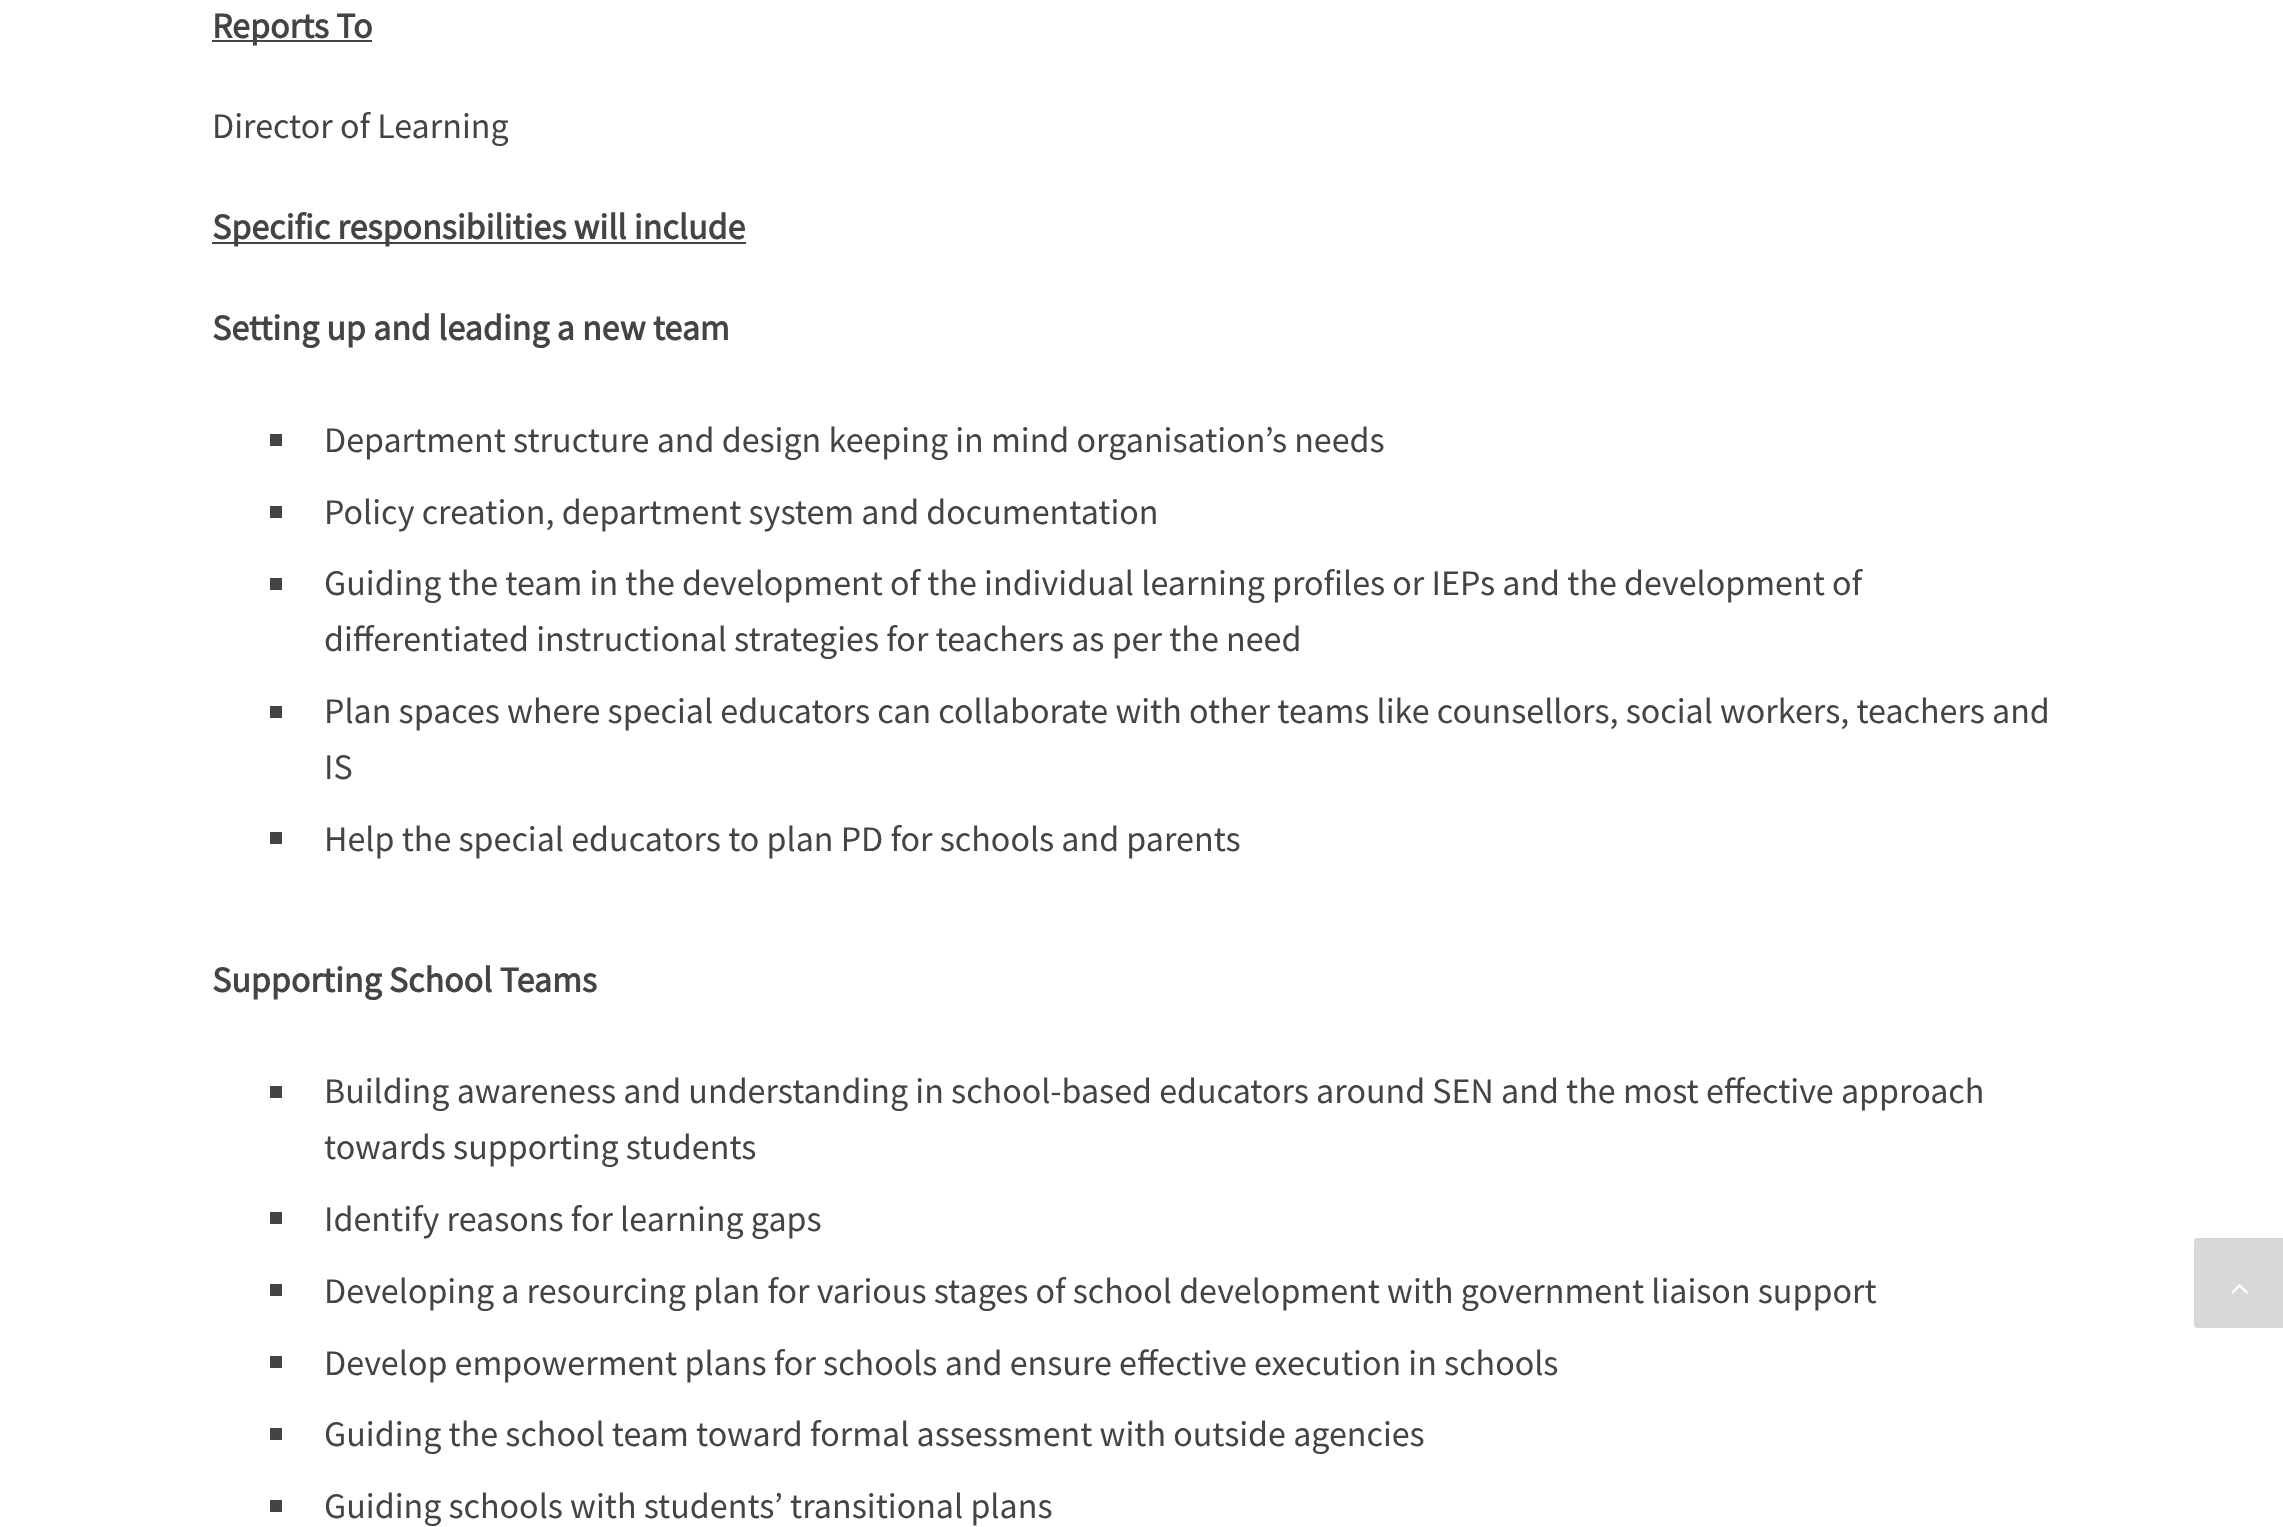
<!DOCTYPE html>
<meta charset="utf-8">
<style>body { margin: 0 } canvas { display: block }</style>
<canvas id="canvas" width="2283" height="1527"></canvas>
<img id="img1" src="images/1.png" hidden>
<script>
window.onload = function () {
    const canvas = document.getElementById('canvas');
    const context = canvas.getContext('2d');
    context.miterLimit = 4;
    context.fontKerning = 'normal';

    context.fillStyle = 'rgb(255, 255, 255)';
    context.fillRect(0, 0, 2283, 1527);
    context.fillStyle = 'rgb(68, 68, 68)';
    context.fillRect(212, 40, 160, 2);
    context.fillRect(212, 242, 534, 2);
    context.fillRect(270, 434, 12, 12);
    context.fillRect(270, 506, 12, 12);
    context.fillRect(270, 578, 12, 12);
    context.fillRect(270, 706, 12, 12);
    context.fillRect(270, 832, 12, 12);
    context.fillRect(270, 1086, 12, 12);
    context.fillRect(270, 1212, 12, 12);
    context.fillRect(270, 1284, 12, 12);
    context.fillRect(270, 1356, 12, 12);
    context.fillRect(270, 1428, 12, 12);
    context.fillRect(270, 1500, 12, 12);
    context.fillStyle = 'rgb(216, 216, 216)';
    context.beginPath();
    context.roundRect(2194, 1238, 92, 90, 4);
    context.fill();
    context.drawImage(document.getElementById('img1'), 2231, 1284, 17, 10);
    context.font = 'bold 36px Source Sans Pro';
    context.fillStyle = 'rgb(68, 68, 68)';
    context.fillText('Reports To', 212, 38);
    context.font = '36px Source Sans Pro';
    context.fillText('Director of Learning', 212, 138);
    context.font = 'bold 36px Source Sans Pro';
    context.fillText('Specific responsibilities will include', 212, 239);
    context.fillText('Setting up and leading a new team', 212, 340);
    context.font = '36px Source Sans Pro';
    context.fillText('Department structure and design keeping in mind organisation’s needs', 324, 452);
    context.fillText('Policy creation, department system and documentation', 324, 524);
    context.fillText('Guiding the team in the development of the individual learning profiles or IEPs and the development of', 324, 595);
    context.fillText('differentiated instructional strategies for teachers as per the need', 324, 651);
    context.fillText('Plan spaces where special educators can collaborate with other teams like counsellors, social workers, teachers and', 324, 723);
    context.fillText('IS', 324, 779);
    context.fillText('Help the special educators to plan PD for schools and parents', 324, 851);
    context.font = 'bold 36px Source Sans Pro';
    context.fillText('Supporting School Teams', 212, 992);
    context.font = '36px Source Sans Pro';
    context.fillText('Building awareness and understanding in school-based educators around SEN and the most effective approach', 324, 1103);
    context.fillText('towards supporting students', 324, 1159);
    context.fillText('Identify reasons for learning gaps', 324, 1231);
    context.fillText('Developing a resourcing plan for various stages of school development with government liaison support', 324, 1303);
    context.fillText('Develop empowerment plans for schools and ensure effective execution in schools', 324, 1375);
    context.fillText('Guiding the school team toward formal assessment with outside agencies', 324, 1446);
    context.fillText('Guiding schools with students’ transitional plans', 324, 1518);
};
</script>
